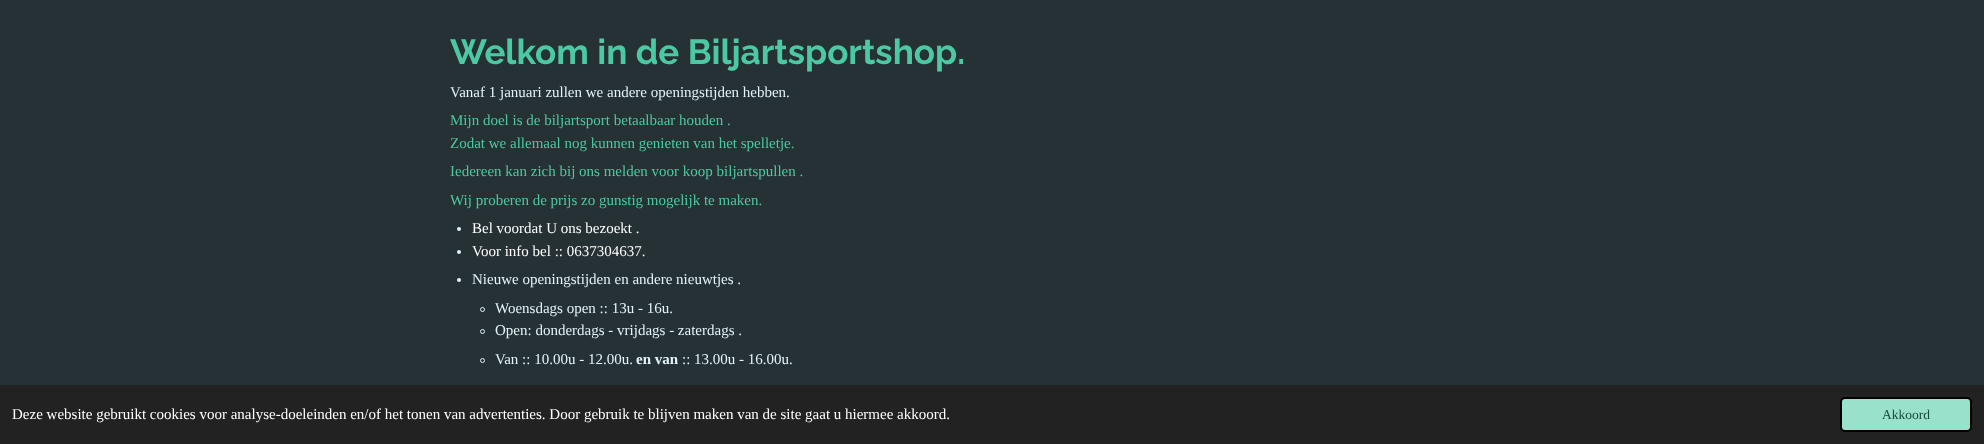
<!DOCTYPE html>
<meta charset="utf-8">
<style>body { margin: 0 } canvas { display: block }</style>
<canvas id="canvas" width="1984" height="444"></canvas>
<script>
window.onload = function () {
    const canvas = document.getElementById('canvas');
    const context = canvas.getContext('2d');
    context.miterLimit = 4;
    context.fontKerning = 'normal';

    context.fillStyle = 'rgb(37, 49, 53)';
    context.fillRect(0, 0, 1984, 444);
    context.fillStyle = 'rgb(227, 243, 249)';
    context.beginPath();
    context.arc(459, 229, 2, 0, 2 * Math.PI);
    context.fill();
    context.beginPath();
    context.arc(459, 252, 2, 0, 2 * Math.PI);
    context.fill();
    context.beginPath();
    context.arc(459, 280, 2, 0, 2 * Math.PI);
    context.fill();
    context.beginPath();
    context.arc(482.5, 309.5, 2, 0, 2 * Math.PI);
    context.strokeStyle = 'rgb(227, 243, 249)';
    context.stroke();
    context.beginPath();
    context.arc(482.5, 331.5, 2, 0, 2 * Math.PI);
    context.stroke();
    context.beginPath();
    context.arc(482.5, 360.5, 2, 0, 2 * Math.PI);
    context.stroke();
    context.fillStyle = 'rgb(34, 34, 34)';
    context.fillRect(0, 385, 1984, 59);
    context.fillStyle = 'rgb(154, 225, 204)';
    context.beginPath();
    context.roundRect(1841, 398, 130, 33, 4);
    context.fill();
    context.strokeStyle = 'rgb(0, 0, 0)';
    context.lineWidth = 2;
    context.stroke();
    context.font = 'bold 35px Raleway';
    context.fillStyle = 'rgb(76, 201, 164)';
    context.fillText('Welkom in de Biljartsportshop.', 450, 64);
    context.font = '15px Liberation Serif';
    context.fillStyle = 'rgb(227, 243, 249)';
    context.fillText('Vanaf 1 januari zullen we andere openingstijden hebben.', 450, 97);
    context.fillStyle = 'rgb(76, 201, 164)';
    context.fillText('Mijn doel is de biljartsport betaalbaar houden .', 450, 125);
    context.fillText('Zodat we allemaal nog kunnen genieten van het spelletje.', 450, 148);
    context.fillText('Iedereen kan zich bij ons melden voor koop biljartspullen .', 450, 176);
    context.fillText('Wij proberen de prijs zo gunstig mogelijk te maken.', 450, 205);
    context.fillStyle = 'rgb(255, 255, 255)';
    context.fillText('Bel voordat U ons bezoekt .', 472, 233);
    context.fillText('Voor info bel :: 0637304637.', 472, 256);
    context.fillStyle = 'rgb(227, 243, 249)';
    context.fillText('Nieuwe openingstijden en andere nieuwtjes .', 472, 284);
    context.fillText('Woensdags open :: 13u - 16u.', 495, 313);
    context.fillText('Open: donderdags - vrijdags - zaterdags .', 495, 335);
    context.fillText('Van :: 10.00u - 12.00u.', 495, 364);
    context.font = 'bold 15px Liberation Serif';
    context.fillText('en van', 636, 364);
    context.font = '15px Liberation Serif';
    context.fillText(':: 13.00u - 16.00u.', 682, 364);
    context.fillStyle = 'rgb(255, 255, 255)';
    context.fillText('Deze website gebruikt cookies voor analyse-doeleinden en/of het tonen van advertenties. Door gebruik te blijven maken van de site gaat u hiermee akkoord.', 12, 419);
    context.font = '13.5px Liberation Serif';
    context.fillStyle = 'rgb(23, 76, 60)';
    context.fillText('Akkoord', 1882, 419);
};
</script>
